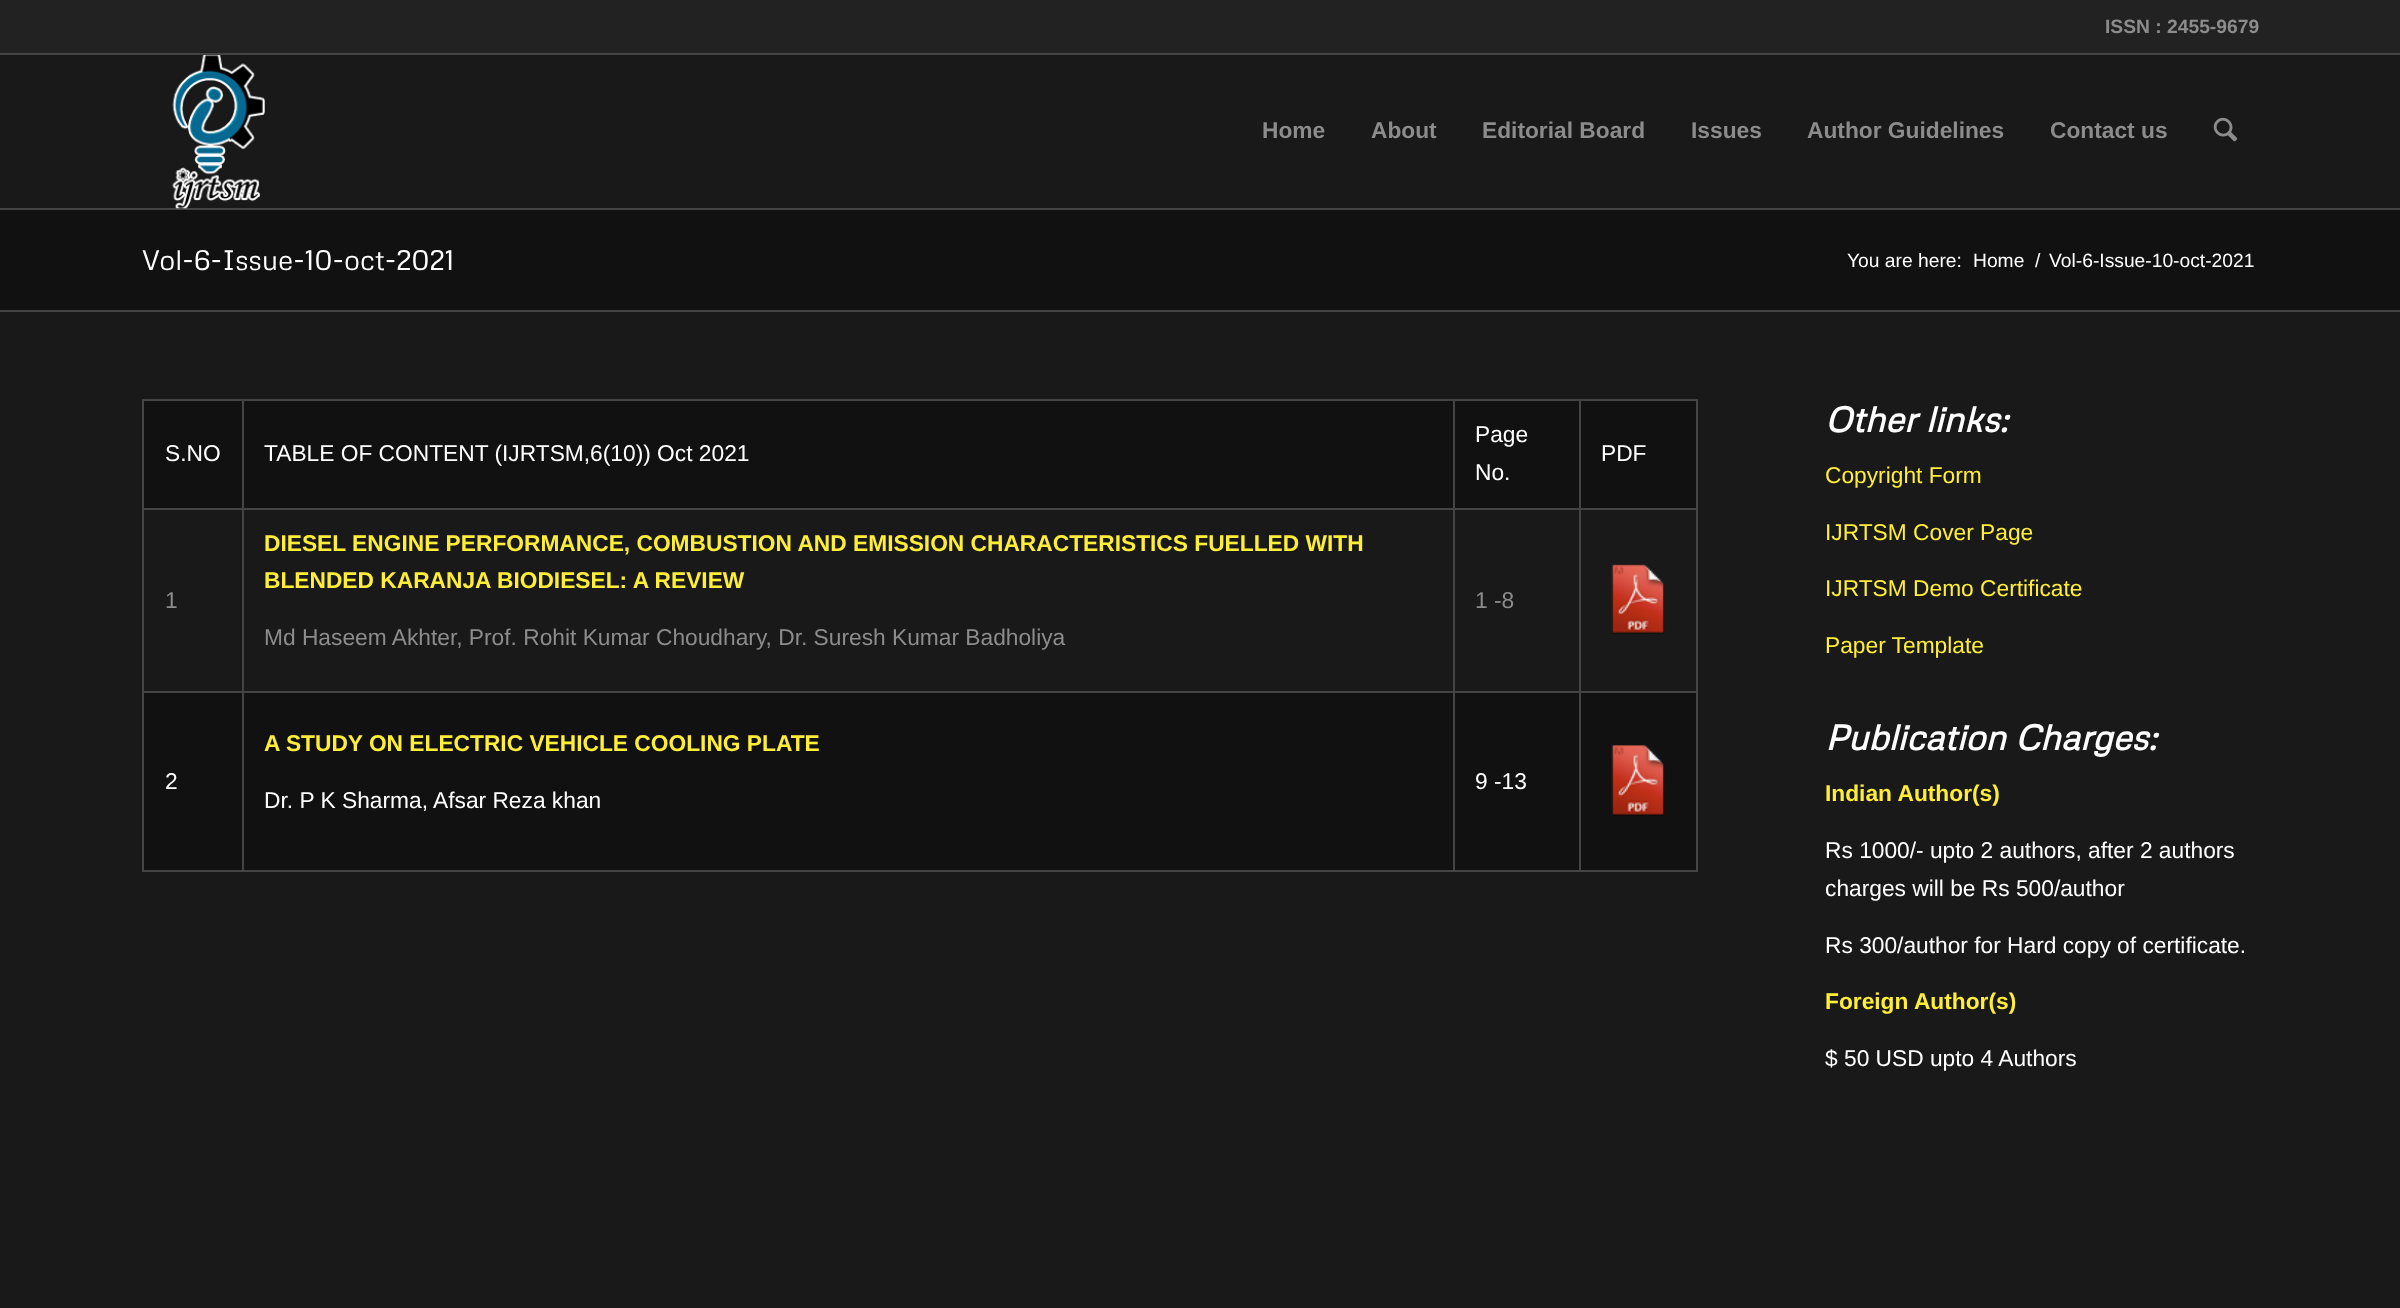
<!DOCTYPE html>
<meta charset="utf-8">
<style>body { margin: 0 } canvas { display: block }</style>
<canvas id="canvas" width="2400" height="1308"></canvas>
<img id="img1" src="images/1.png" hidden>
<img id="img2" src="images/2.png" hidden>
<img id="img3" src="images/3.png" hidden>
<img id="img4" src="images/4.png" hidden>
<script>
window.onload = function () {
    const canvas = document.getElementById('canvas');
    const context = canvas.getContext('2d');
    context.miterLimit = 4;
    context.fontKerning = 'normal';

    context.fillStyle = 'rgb(25, 25, 25)';
    context.fillRect(0, 0, 2400, 1308);
    context.fillStyle = 'rgb(34, 34, 34)';
    context.fillRect(0, 0, 2400, 53);
    context.fillStyle = 'rgb(68, 68, 68)';
    context.fillRect(0, 53, 2400, 2);
    context.fillRect(0, 208, 2400, 2);
    context.drawImage(document.getElementById('img1'), 172, 55, 93, 154);
    context.drawImage(document.getElementById('img2'), 2213, 117, 25, 25);
    context.fillStyle = 'rgb(17, 17, 17)';
    context.fillRect(0, 210, 2400, 100);
    context.fillStyle = 'rgb(68, 68, 68)';
    context.fillRect(0, 310, 2400, 2);
    context.fillStyle = 'rgb(17, 17, 17)';
    context.fillRect(144, 401, 1552, 469);
    context.fillStyle = 'rgb(68, 68, 68)';
    context.fillRect(142, 399, 1556, 2);
    context.fillRect(1696, 508, 2, 364);
    context.fillRect(1696, 399, 2, 110);
    context.fillStyle = 'rgb(25, 25, 25)';
    context.fillRect(144, 510, 1552, 181);
    context.fillStyle = 'rgb(68, 68, 68)';
    context.fillRect(1579, 870, 119, 2);
    context.fillRect(1579, 691, 2, 181);
    context.fillRect(1579, 691, 119, 2);
    context.fillRect(1579, 508, 2, 185);
    context.fillRect(1579, 508, 119, 2);
    context.fillRect(1579, 399, 2, 110);
    context.fillRect(1453, 870, 127, 2);
    context.fillRect(1453, 691, 2, 181);
    context.fillRect(1453, 691, 127, 2);
    context.fillRect(1453, 508, 2, 185);
    context.fillRect(1453, 508, 127, 2);
    context.fillRect(1453, 399, 2, 110);
    context.fillRect(242, 870, 1212, 2);
    context.fillRect(242, 691, 2, 181);
    context.fillRect(242, 691, 1212, 2);
    context.fillRect(242, 508, 2, 185);
    context.fillRect(242, 508, 1212, 2);
    context.fillRect(242, 399, 2, 110);
    context.fillRect(142, 870, 101, 2);
    context.fillRect(142, 691, 2, 181);
    context.fillRect(142, 691, 101, 2);
    context.fillRect(142, 508, 2, 185);
    context.fillRect(142, 508, 101, 2);
    context.fillRect(142, 399, 2, 110);
    context.drawImage(document.getElementById('img3'), 1611, 564, 54, 70);
    context.drawImage(document.getElementById('img4'), 1611, 745, 54, 71);
    context.font = 'bold 19.25px Liberation Sans';
    context.fillStyle = 'rgb(140, 140, 140)';
    context.fillText('ISSN : 2455-9679', 2105, 33);
    context.font = 'bold 22.75px Liberation Sans';
    context.fillText('Home', 1262, 138);
    context.fillText('About', 1371, 138);
    context.fillText('Editorial Board', 1482, 138);
    context.fillText('Issues', 1691, 138);
    context.fillText('Author Guidelines', 1807, 138);
    context.fillText('Contact us', 2050, 138);
    context.font = '28px Metrophobic';
    context.fillStyle = 'rgb(255, 255, 255)';
    context.fillText('Vol-6-Issue-10-oct-2021', 142, 270);
    context.font = '19.25px Liberation Sans';
    context.fillText('You are here:', 1847, 267);
    context.fillText('Home', 1973, 267);
    context.fillText('/', 2035, 267);
    context.fillText('Vol-6-Issue-10-oct-2021', 2049, 267);
    context.font = '22.75px Liberation Sans';
    context.fillText('S.NO', 165, 461);
    context.fillText('TABLE OF CONTENT (IJRTSM,6(10)) Oct 2021', 264, 461);
    context.fillText('Page', 1475, 442);
    context.fillText('No.', 1475, 480);
    context.fillText('PDF', 1601, 461);
    context.fillStyle = 'rgb(140, 140, 140)';
    context.fillText('1', 165, 608);
    context.font = 'bold 22.75px Liberation Sans';
    context.fillStyle = 'rgb(255, 238, 56)';
    context.fillText('DIESEL ENGINE PERFORMANCE, COMBUSTION AND EMISSION CHARACTERISTICS FUELLED WITH', 264, 551);
    context.fillText('BLENDED KARANJA BIODIESEL: A REVIEW', 264, 588);
    context.font = '22.75px Liberation Sans';
    context.fillStyle = 'rgb(140, 140, 140)';
    context.fillText('Md Haseem Akhter, Prof. Rohit Kumar Choudhary, Dr. Suresh Kumar Badholiya', 264, 645);
    context.fillText('1 -8', 1475, 608);
    context.fillStyle = 'rgb(255, 255, 255)';
    context.fillText('2', 165, 789);
    context.font = 'bold 22.75px Liberation Sans';
    context.fillStyle = 'rgb(255, 238, 56)';
    context.fillText('A STUDY ON ELECTRIC VEHICLE COOLING PLATE', 264, 751);
    context.font = '22.75px Liberation Sans';
    context.fillStyle = 'rgb(255, 255, 255)';
    context.fillText('Dr. P K Sharma, Afsar Reza khan', 264, 808);
    context.fillText('9 -13', 1475, 789);
    context.font = 'italic bold 35px Metrophobic';
    context.fillText('Other links:', 1825, 432);
    context.font = '22.75px Liberation Sans';
    context.fillStyle = 'rgb(255, 238, 56)';
    context.fillText('Copyright Form', 1825, 483);
    context.fillText('IJRTSM Cover Page', 1825, 540);
    context.fillText('IJRTSM Demo Certificate', 1825, 596);
    context.fillText('Paper Template', 1825, 653);
    context.font = 'italic bold 35px Metrophobic';
    context.fillStyle = 'rgb(255, 255, 255)';
    context.fillText('Publication Charges:', 1825, 750);
    context.font = 'bold 22.75px Liberation Sans';
    context.fillStyle = 'rgb(255, 238, 56)';
    context.fillText('Indian Author(s)', 1825, 801);
    context.font = '22.75px Liberation Sans';
    context.fillStyle = 'rgb(255, 255, 255)';
    context.fillText('Rs 1000/- upto 2 authors, after 2 authors', 1825, 858);
    context.fillText('charges will be Rs 500/author', 1825, 896);
    context.fillText('Rs 300/author for Hard copy of certificate.', 1825, 953);
    context.font = 'bold 22.75px Liberation Sans';
    context.fillStyle = 'rgb(255, 238, 56)';
    context.fillText('Foreign Author(s)', 1825, 1009);
    context.font = '22.75px Liberation Sans';
    context.fillStyle = 'rgb(255, 255, 255)';
    context.fillText('$ 50 USD upto 4 Authors', 1825, 1066);
};
</script>
